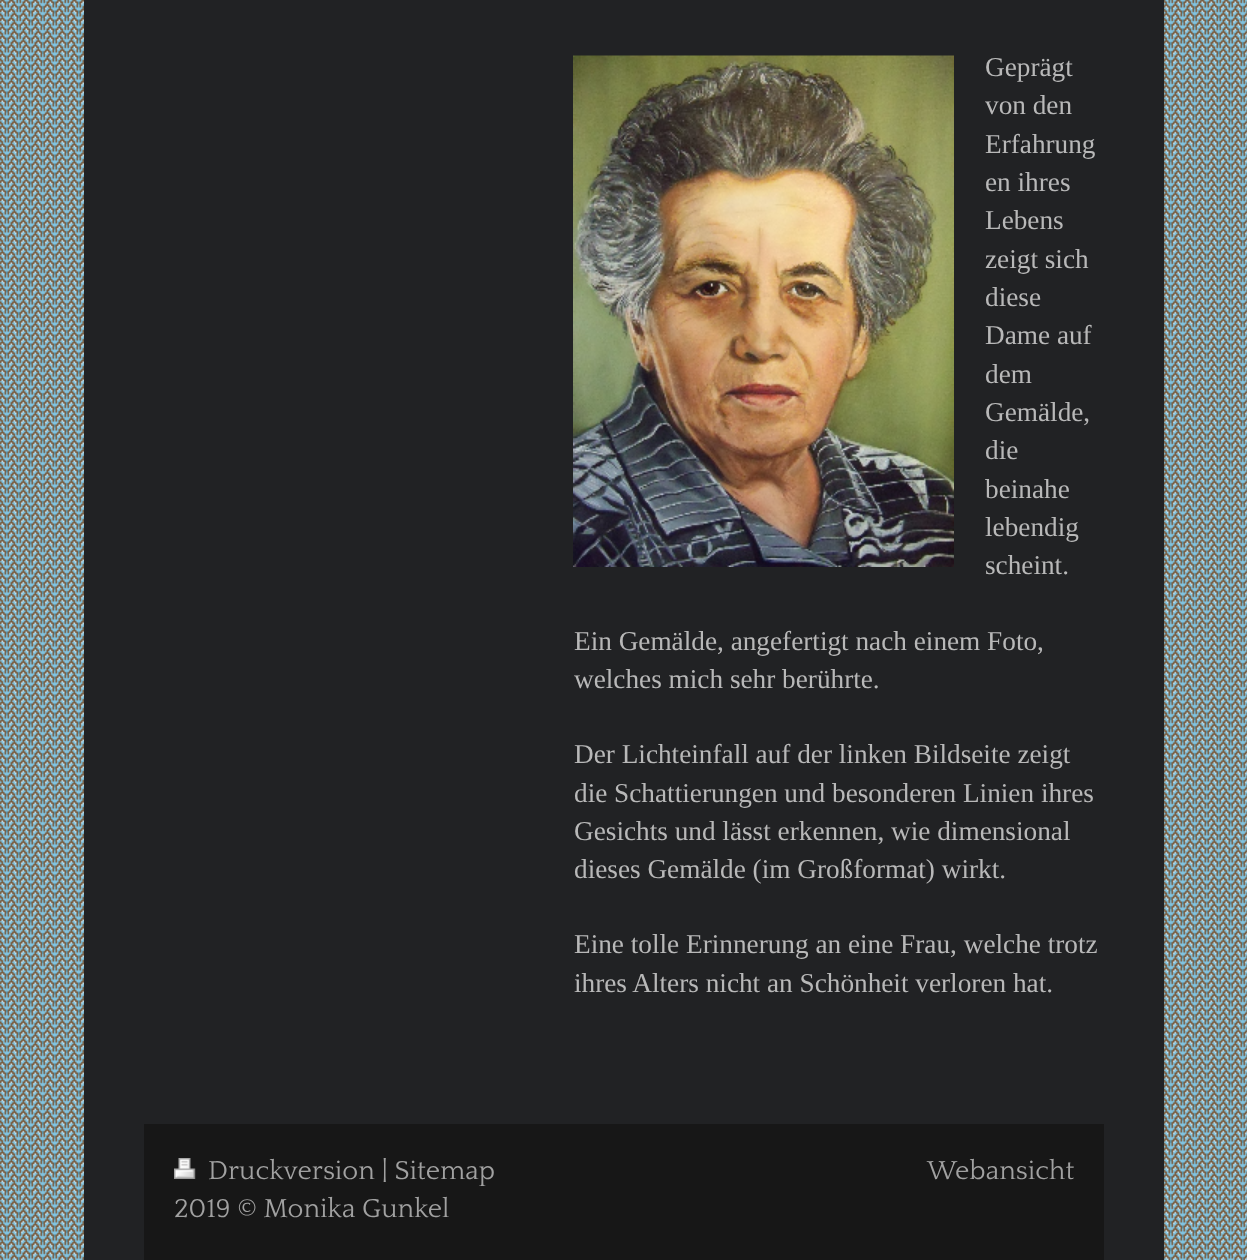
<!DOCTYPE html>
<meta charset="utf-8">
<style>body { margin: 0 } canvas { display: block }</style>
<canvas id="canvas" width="1247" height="1260"></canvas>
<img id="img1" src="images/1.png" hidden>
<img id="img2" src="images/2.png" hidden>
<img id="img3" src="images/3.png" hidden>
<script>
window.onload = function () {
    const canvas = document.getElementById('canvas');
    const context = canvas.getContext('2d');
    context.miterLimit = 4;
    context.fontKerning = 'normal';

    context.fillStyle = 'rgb(255, 255, 255)';
    context.fillRect(0, 0, 1247, 1260);
    context.drawImage(document.getElementById('img1'), 0, 0, 1247, 1260);
    context.fillStyle = 'rgb(33, 34, 36)';
    context.fillRect(84, 0, 1080, 1260);
    context.drawImage(document.getElementById('img2'), 573, 55, 381, 512);
    context.fillStyle = 'rgb(23, 23, 23)';
    context.fillRect(144, 1124, 960, 136);
    context.drawImage(document.getElementById('img3'), 174, 1158, 22, 21);
    context.font = '27.25px Liberation Serif';
    context.fillStyle = 'rgb(184, 184, 184)';
    context.fillText('Geprägt', 985, 76);
    context.fillText('von den', 985, 114);
    context.fillText('Erfahrung', 985, 153);
    context.fillText('en ihres', 985, 191);
    context.fillText('Lebens', 985, 229);
    context.fillText('zeigt sich', 985, 268);
    context.fillText('diese', 985, 306);
    context.fillText('Dame auf', 985, 344);
    context.fillText('dem', 985, 383);
    context.fillText('Gemälde,', 985, 421);
    context.fillText('die', 985, 459);
    context.fillText('beinahe', 985, 498);
    context.fillText('lebendig', 985, 536);
    context.fillText('scheint.', 985, 574);
    context.fillText('Ein Gemälde, angefertigt nach einem Foto,', 574, 650);
    context.fillText('welches mich sehr berührte.', 574, 688);
    context.fillText('Der Lichteinfall auf der linken Bildseite zeigt', 574, 763);
    context.fillText('die Schattierungen und besonderen Linien ihres', 574, 802);
    context.fillText('Gesichts und lässt erkennen, wie dimensional', 574, 840);
    context.fillText('dieses Gemälde (im Großformat) wirkt.', 574, 878);
    context.fillText('Eine tolle Erinnerung an eine Frau, welche trotz', 574, 953);
    context.fillText('ihres Alters nicht an Schönheit verloren hat.', 574, 992);
    context.font = '27.25px Quattrocento';
    context.fillStyle = 'rgb(161, 161, 161)';
    context.fillText('Druckversion | Sitemap', 208, 1179);
    context.fillText('2019 © Monika Gunkel', 174, 1217);
    context.fillText('Webansicht', 927, 1179);
};
</script>
